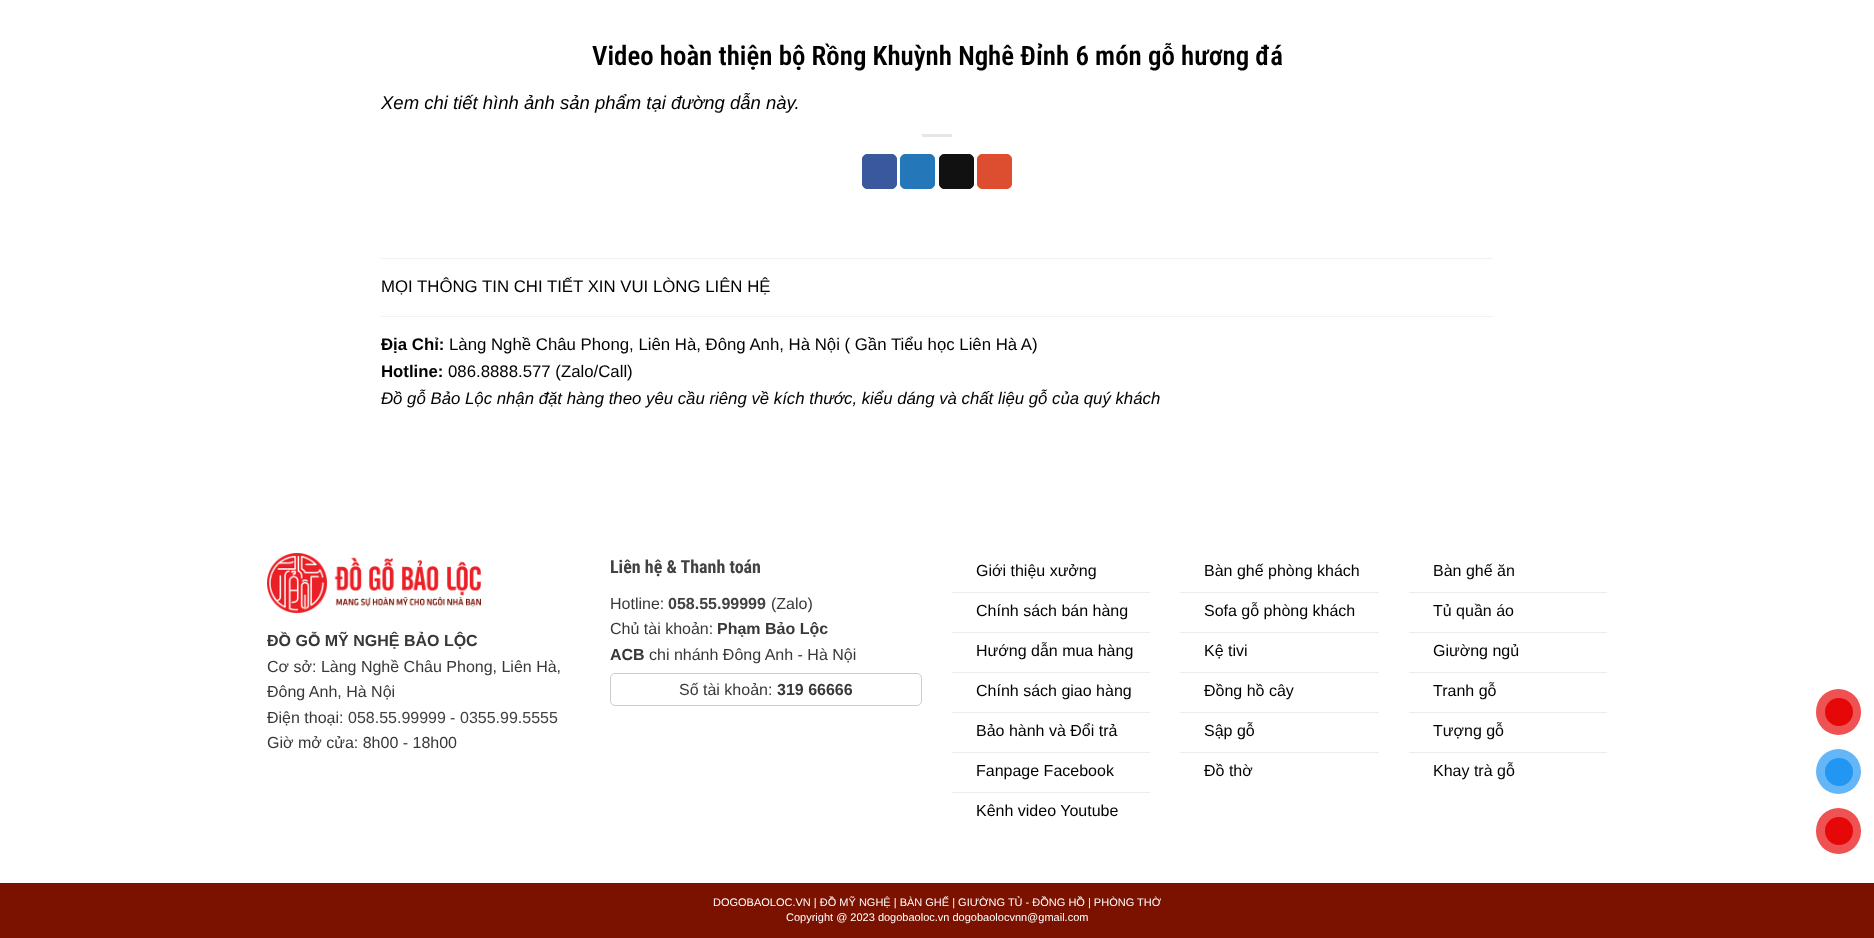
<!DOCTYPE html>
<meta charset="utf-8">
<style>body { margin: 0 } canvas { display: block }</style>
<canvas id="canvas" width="1874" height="938"></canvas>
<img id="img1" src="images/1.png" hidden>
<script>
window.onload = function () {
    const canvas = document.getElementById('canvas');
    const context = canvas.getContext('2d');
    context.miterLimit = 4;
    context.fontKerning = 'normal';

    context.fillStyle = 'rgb(255, 255, 255)';
    context.fillRect(0, 0, 1874, 938);
    context.fillStyle = 'rgb(230, 230, 230)';
    context.fillRect(922, 134, 30, 3);
    context.fillStyle = 'rgb(58, 88, 157)';
    context.beginPath();
    context.roundRect(862.5, 154.5, 34, 34, 4.5);
    context.fill();
    context.strokeStyle = 'rgb(58, 88, 157)';
    context.stroke();
    context.fillStyle = 'rgb(36, 120, 186)';
    context.beginPath();
    context.roundRect(900.5, 154.5, 34, 34, 4.5);
    context.fill();
    context.strokeStyle = 'rgb(36, 120, 186)';
    context.stroke();
    context.fillStyle = 'rgb(17, 17, 17)';
    context.beginPath();
    context.roundRect(939.5, 154.5, 34, 34, 4.5);
    context.fill();
    context.strokeStyle = 'rgb(17, 17, 17)';
    context.stroke();
    context.fillStyle = 'rgb(221, 78, 49)';
    context.beginPath();
    context.roundRect(977.5, 154.5, 34, 34, 4.5);
    context.fill();
    context.strokeStyle = 'rgb(221, 78, 49)';
    context.stroke();
    context.fillStyle = 'rgb(242, 242, 242)';
    context.fillRect(381, 258, 1112, 1);
    context.fillRect(381, 316, 1112, 1);
    context.drawImage(document.getElementById('img1'), 267, 553, 214, 60);
    context.beginPath();
    context.roundRect(610.5, 673.5, 311, 32, 4.5);
    context.strokeStyle = 'rgb(204, 204, 204)';
    context.stroke();
    context.fillStyle = 'rgb(236, 236, 236)';
    context.fillRect(952, 592, 198, 1);
    context.fillRect(952, 632, 198, 1);
    context.fillRect(952, 672, 198, 1);
    context.fillRect(952, 712, 198, 1);
    context.fillRect(952, 752, 198, 1);
    context.fillRect(952, 792, 198, 1);
    context.fillRect(1180, 592, 199, 1);
    context.fillRect(1180, 632, 199, 1);
    context.fillRect(1180, 672, 199, 1);
    context.fillRect(1180, 712, 199, 1);
    context.fillRect(1180, 752, 199, 1);
    context.fillRect(1409, 592, 198, 1);
    context.fillRect(1409, 632, 198, 1);
    context.fillRect(1409, 672, 198, 1);
    context.fillRect(1409, 712, 198, 1);
    context.fillRect(1409, 752, 198, 1);
    context.fillStyle = 'rgb(123, 18, 0)';
    context.fillRect(0, 883, 1874, 55);
    context.fillStyle = 'rgb(238, 82, 82)';
    context.beginPath();
    context.roundRect(1816, 689, 45, 46, 22.5);
    context.fill();
    context.fillStyle = 'rgb(230, 8, 8)';
    context.beginPath();
    context.arc(1839, 712, 14, 0, 2 * Math.PI);
    context.fill();
    context.fillStyle = 'rgb(100, 182, 247)';
    context.beginPath();
    context.arc(1838.5, 771.5, 22.5, 0, 2 * Math.PI);
    context.fill();
    context.fillStyle = 'rgb(33, 150, 243)';
    context.beginPath();
    context.arc(1839, 772, 14, 0, 2 * Math.PI);
    context.fill();
    context.fillStyle = 'rgb(238, 82, 82)';
    context.beginPath();
    context.roundRect(1816, 808, 45, 46, 22.5);
    context.fill();
    context.fillStyle = 'rgb(230, 8, 8)';
    context.beginPath();
    context.arc(1839, 831, 14, 0, 2 * Math.PI);
    context.fill();
    context.font = '600 26.9px Roboto Condensed';
    context.fillStyle = 'rgb(0, 0, 0)';
    context.fillText('Video hoàn thiện bộ Rồng Khuỳnh Nghê Đỉnh 6 món gỗ hương đá', 592, 65);
    context.font = 'italic 18.5px Liberation Sans';
    context.fillText('Xem chi tiết hình ảnh sản phẩm tại đường dẫn này.', 381, 109);
    context.font = '16.8px Liberation Sans';
    context.fillText('MỌI THÔNG TIN CHI TIẾT XIN VUI LÒNG LIÊN HỆ', 381, 292);
    context.font = 'bold 16.8px Liberation Sans';
    context.fillText('Địa Chỉ:', 381, 350);
    context.font = '16.8px Liberation Sans';
    context.fillText('Làng Nghề Châu Phong, Liên Hà, Đông Anh, Hà Nội ( Gần Tiểu học Liên Hà A)', 449, 350);
    context.font = 'bold 16.8px Liberation Sans';
    context.fillText('Hotline:', 381, 377);
    context.font = '16.8px Liberation Sans';
    context.fillText('086.8888.577 (Zalo/Call)', 448, 377);
    context.font = 'italic 16.8px Liberation Sans';
    context.fillText('Đồ gỗ Bảo Lộc nhận đặt hàng theo yêu cầu riêng về kích thước, kiểu dáng và chất liệu gỗ của quý khách', 381, 404);
    context.font = 'bold 16px Liberation Sans';
    context.fillStyle = 'rgb(56, 56, 56)';
    context.fillText('ĐỒ GỖ MỸ NGHỆ BẢO LỘC', 267, 646);
    context.font = '16px Liberation Sans';
    context.fillText('Cơ sở: Làng Nghề Châu Phong, Liên Hà,', 267, 672);
    context.fillText('Đông Anh, Hà Nội', 267, 697);
    context.fillText('Điện thoại:', 267, 723);
    context.fillStyle = 'rgb(66, 66, 66)';
    context.fillText('058.55.99999', 348, 723);
    context.fillStyle = 'rgb(56, 56, 56)';
    context.fillText('-', 450, 723);
    context.fillStyle = 'rgb(66, 66, 66)';
    context.fillText('0355.99.5555', 460, 723);
    context.fillStyle = 'rgb(56, 56, 56)';
    context.fillText('Giờ mở cửa: 8h00 - 18h00', 267, 748);
    context.font = 'bold 18px Roboto Condensed';
    context.fillStyle = 'rgb(66, 66, 66)';
    context.fillText('Liên hệ & Thanh toán', 610, 573);
    context.font = '16px Liberation Sans';
    context.fillStyle = 'rgb(56, 56, 56)';
    context.fillText('Hotline:', 610, 609);
    context.font = 'bold 16px Liberation Sans';
    context.fillStyle = 'rgb(66, 66, 66)';
    context.fillText('058.55.99999', 668, 609);
    context.font = '16px Liberation Sans';
    context.fillStyle = 'rgb(56, 56, 56)';
    context.fillText('(Zalo)', 771, 609);
    context.fillText('Chủ tài khoản:', 610, 634);
    context.font = 'bold 16px Liberation Sans';
    context.fillText('Phạm Bảo Lộc', 717, 634);
    context.fillText('ACB', 610, 660);
    context.font = '16px Liberation Sans';
    context.fillText('chi nhánh Đông Anh - Hà Nội', 649, 660);
    context.fillText('Số tài khoản:', 679, 695);
    context.font = 'bold 16px Liberation Sans';
    context.fillText('319 66666', 777, 695);
    context.font = '16px Liberation Sans';
    context.fillStyle = 'rgb(0, 0, 0)';
    context.fillText('Giới thiệu xưởng', 976, 576);
    context.fillText('Chính sách bán hàng', 976, 616);
    context.fillText('Hướng dẫn mua hàng', 976, 656);
    context.fillText('Chính sách giao hàng', 976, 696);
    context.fillText('Bảo hành và Đổi trả', 976, 736);
    context.fillText('Fanpage Facebook', 976, 776);
    context.fillText('Kênh video Youtube', 976, 816);
    context.fillText('Bàn ghế phòng khách', 1204, 576);
    context.fillText('Sofa gỗ phòng khách', 1204, 616);
    context.fillText('Kệ tivi', 1204, 656);
    context.fillText('Đồng hồ cây', 1204, 696);
    context.fillText('Sập gỗ', 1204, 736);
    context.fillText('Đồ thờ', 1204, 776);
    context.fillText('Bàn ghế ăn', 1433, 576);
    context.fillText('Tủ quần áo', 1433, 616);
    context.fillText('Giường ngủ', 1433, 656);
    context.fillText('Tranh gỗ', 1433, 696);
    context.fillText('Tượng gỗ', 1433, 736);
    context.fillText('Khay trà gỗ', 1433, 776);
    context.font = '11px Liberation Sans';
    context.fillStyle = 'rgb(255, 255, 255)';
    context.fillText('DOGOBAOLOC.VN | ĐỒ MỸ NGHỆ | BÀN GHẾ | GIƯỜNG TỦ - ĐỒNG HỒ | PHÒNG THỜ', 713, 906);
    context.fillText('Copyright @ 2023 dogobaoloc.vn dogobaolocvnn@gmail.com', 786, 921);
};
</script>
